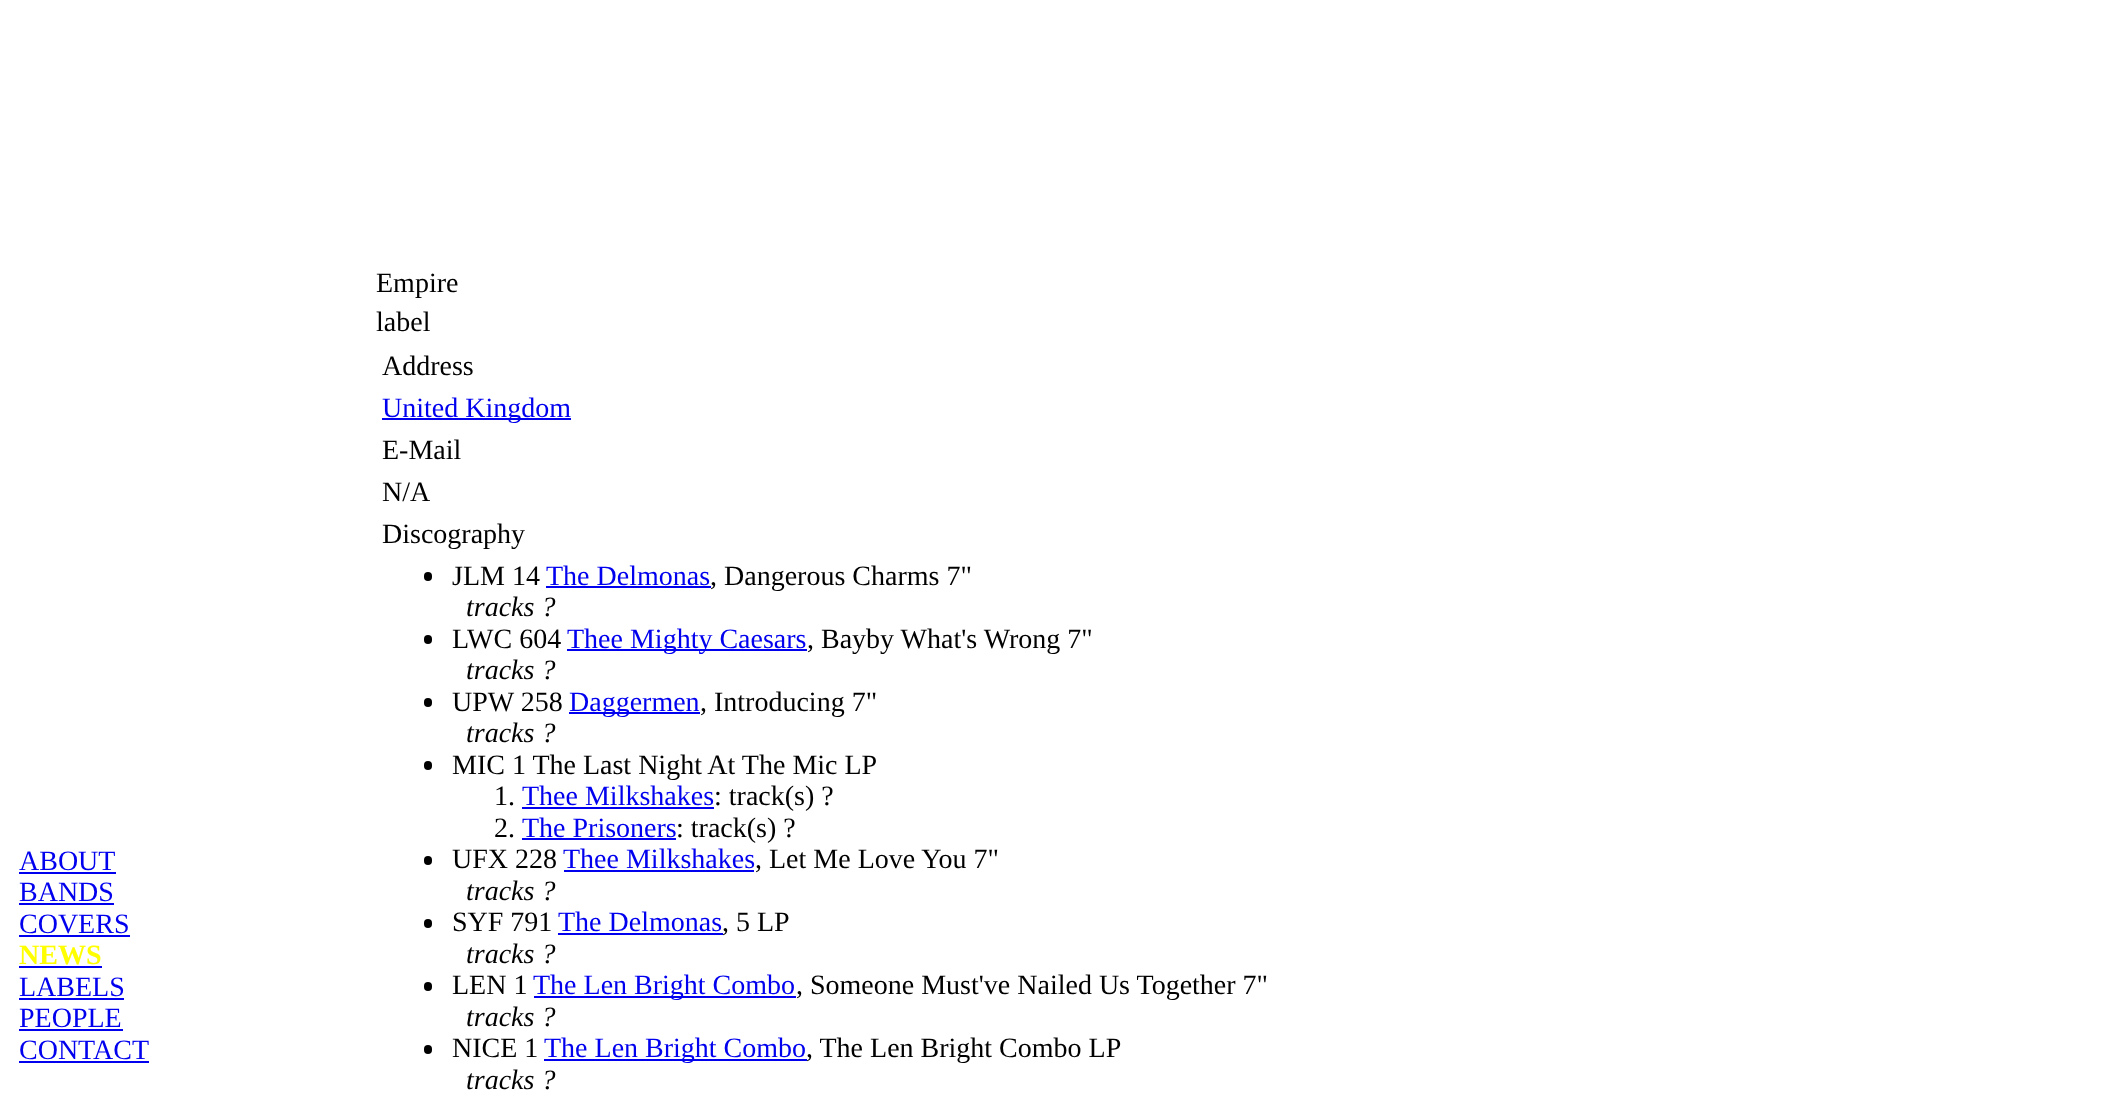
<!DOCTYPE html>
<meta charset="utf-8">
<style>body { margin: 0 } canvas { display: block }</style>
<canvas id="canvas" width="2112" height="1106"></canvas>
<script>
window.onload = function () {
    const canvas = document.getElementById('canvas');
    const context = canvas.getContext('2d');
    context.miterLimit = 4;
    context.fontKerning = 'normal';

    context.fillStyle = 'rgb(255, 255, 255)';
    context.fillRect(0, 0, 2112, 1106);
    context.fillStyle = 'rgb(0, 0, 238)';
    context.fillRect(19, 872, 97, 2);
    context.fillRect(19, 903, 95, 2);
    context.fillRect(19, 935, 111, 2);
    context.fillRect(19, 966, 83, 2);
    context.fillRect(19, 998, 105, 2);
    context.fillRect(19, 1029, 104, 2);
    context.fillRect(19, 1061, 130, 2);
    context.fillRect(382, 418, 189, 2);
    context.fillStyle = 'rgb(0, 0, 0)';
    context.beginPath();
    context.roundRect(424, 572, 8, 9, 4);
    context.fill();
    context.fillStyle = 'rgb(0, 0, 238)';
    context.fillRect(546, 586, 165, 2);
    context.fillStyle = 'rgb(0, 0, 0)';
    context.beginPath();
    context.roundRect(424, 635, 8, 9, 4);
    context.fill();
    context.fillStyle = 'rgb(0, 0, 238)';
    context.fillRect(567, 649, 240, 2);
    context.fillStyle = 'rgb(0, 0, 0)';
    context.beginPath();
    context.roundRect(424, 698, 8, 9, 4);
    context.fill();
    context.fillStyle = 'rgb(0, 0, 238)';
    context.fillRect(569, 712, 131, 2);
    context.fillStyle = 'rgb(0, 0, 0)';
    context.beginPath();
    context.roundRect(424, 761, 8, 9, 4);
    context.fill();
    context.fillStyle = 'rgb(0, 0, 238)';
    context.fillRect(522, 807, 192, 2);
    context.fillRect(522, 838, 154, 2);
    context.fillStyle = 'rgb(0, 0, 0)';
    context.beginPath();
    context.roundRect(424, 856, 8, 9, 4);
    context.fill();
    context.fillStyle = 'rgb(0, 0, 238)';
    context.fillRect(564, 870, 190, 2);
    context.fillStyle = 'rgb(0, 0, 0)';
    context.beginPath();
    context.roundRect(424, 919, 8, 9, 4);
    context.fill();
    context.fillStyle = 'rgb(0, 0, 238)';
    context.fillRect(558, 933, 165, 2);
    context.fillStyle = 'rgb(0, 0, 0)';
    context.beginPath();
    context.roundRect(424, 982, 8, 9, 4);
    context.fill();
    context.fillStyle = 'rgb(0, 0, 238)';
    context.fillRect(534, 996, 262, 2);
    context.fillStyle = 'rgb(0, 0, 0)';
    context.beginPath();
    context.roundRect(424, 1045, 8, 9, 4);
    context.fill();
    context.fillStyle = 'rgb(0, 0, 238)';
    context.fillRect(544, 1059, 263, 2);
    context.font = '28px Liberation Serif';
    context.fillStyle = 'rgb(0, 0, 0)';
    context.fillText('Empire', 376, 292);
    context.fillStyle = 'rgb(0, 0, 238)';
    context.fillText('ABOUT', 19, 870);
    context.fillText('BANDS', 19, 901);
    context.fillText('COVERS', 19, 933);
    context.font = 'bold 28px Liberation Serif';
    context.fillStyle = 'rgb(255, 255, 0)';
    context.fillText('NEWS', 19, 964);
    context.font = '28px Liberation Serif';
    context.fillStyle = 'rgb(0, 0, 238)';
    context.fillText('LABELS', 19, 996);
    context.fillText('PEOPLE', 19, 1027);
    context.fillText('CONTACT', 19, 1059);
    context.fillStyle = 'rgb(0, 0, 0)';
    context.fillText('label', 376, 331);
    context.fillText('Address', 382, 375);
    context.fillStyle = 'rgb(0, 0, 238)';
    context.fillText('United Kingdom', 382, 417);
    context.fillStyle = 'rgb(0, 0, 0)';
    context.fillText('E-Mail', 382, 459);
    context.fillText('N/A', 382, 501);
    context.fillText('Discography', 382, 543);
    context.fillText('JLM 14', 452, 585);
    context.fillStyle = 'rgb(0, 0, 238)';
    context.fillText('The Delmonas', 546, 585);
    context.fillStyle = 'rgb(0, 0, 0)';
    context.fillText(', Dangerous Charms 7"', 710, 585);
    context.font = 'italic 28px Liberation Serif';
    context.fillText('tracks ?', 466, 616);
    context.font = '28px Liberation Serif';
    context.fillText('LWC 604', 452, 648);
    context.fillStyle = 'rgb(0, 0, 238)';
    context.fillText('Thee Mighty Caesars', 567, 648);
    context.fillStyle = 'rgb(0, 0, 0)';
    context.fillText(', Bayby What\'s Wrong 7"', 807, 648);
    context.font = 'italic 28px Liberation Serif';
    context.fillText('tracks ?', 466, 679);
    context.font = '28px Liberation Serif';
    context.fillText('UPW 258', 452, 711);
    context.fillStyle = 'rgb(0, 0, 238)';
    context.fillText('Daggermen', 569, 711);
    context.fillStyle = 'rgb(0, 0, 0)';
    context.fillText(', Introducing 7"', 700, 711);
    context.font = 'italic 28px Liberation Serif';
    context.fillText('tracks ?', 466, 742);
    context.font = '28px Liberation Serif';
    context.fillText('MIC 1 The Last Night At The Mic LP', 452, 774);
    context.fillText('1.', 494, 805);
    context.fillStyle = 'rgb(0, 0, 238)';
    context.fillText('Thee Milkshakes', 522, 805);
    context.fillStyle = 'rgb(0, 0, 0)';
    context.fillText(': track(s) ?', 714, 805);
    context.fillText('2.', 494, 837);
    context.fillStyle = 'rgb(0, 0, 238)';
    context.fillText('The Prisoners', 522, 837);
    context.fillStyle = 'rgb(0, 0, 0)';
    context.fillText(': track(s) ?', 676, 837);
    context.fillText('UFX 228', 452, 868);
    context.fillStyle = 'rgb(0, 0, 238)';
    context.fillText('Thee Milkshakes', 563, 868);
    context.fillStyle = 'rgb(0, 0, 0)';
    context.fillText(', Let Me Love You 7"', 755, 868);
    context.font = 'italic 28px Liberation Serif';
    context.fillText('tracks ?', 466, 900);
    context.font = '28px Liberation Serif';
    context.fillText('SYF 791', 452, 931);
    context.fillStyle = 'rgb(0, 0, 238)';
    context.fillText('The Delmonas', 558, 931);
    context.fillStyle = 'rgb(0, 0, 0)';
    context.fillText(', 5 LP', 722, 931);
    context.font = 'italic 28px Liberation Serif';
    context.fillText('tracks ?', 466, 963);
    context.font = '28px Liberation Serif';
    context.fillText('LEN 1', 452, 994);
    context.fillStyle = 'rgb(0, 0, 238)';
    context.fillText('The Len Bright Combo', 533, 994);
    context.fillStyle = 'rgb(0, 0, 0)';
    context.fillText(', Someone Must\'ve Nailed Us Together 7"', 796, 994);
    context.font = 'italic 28px Liberation Serif';
    context.fillText('tracks ?', 466, 1026);
    context.font = '28px Liberation Serif';
    context.fillText('NICE 1', 452, 1057);
    context.fillStyle = 'rgb(0, 0, 238)';
    context.fillText('The Len Bright Combo', 544, 1057);
    context.fillStyle = 'rgb(0, 0, 0)';
    context.fillText(', The Len Bright Combo LP', 806, 1057);
    context.font = 'italic 28px Liberation Serif';
    context.fillText('tracks ?', 466, 1089);
};
</script>
